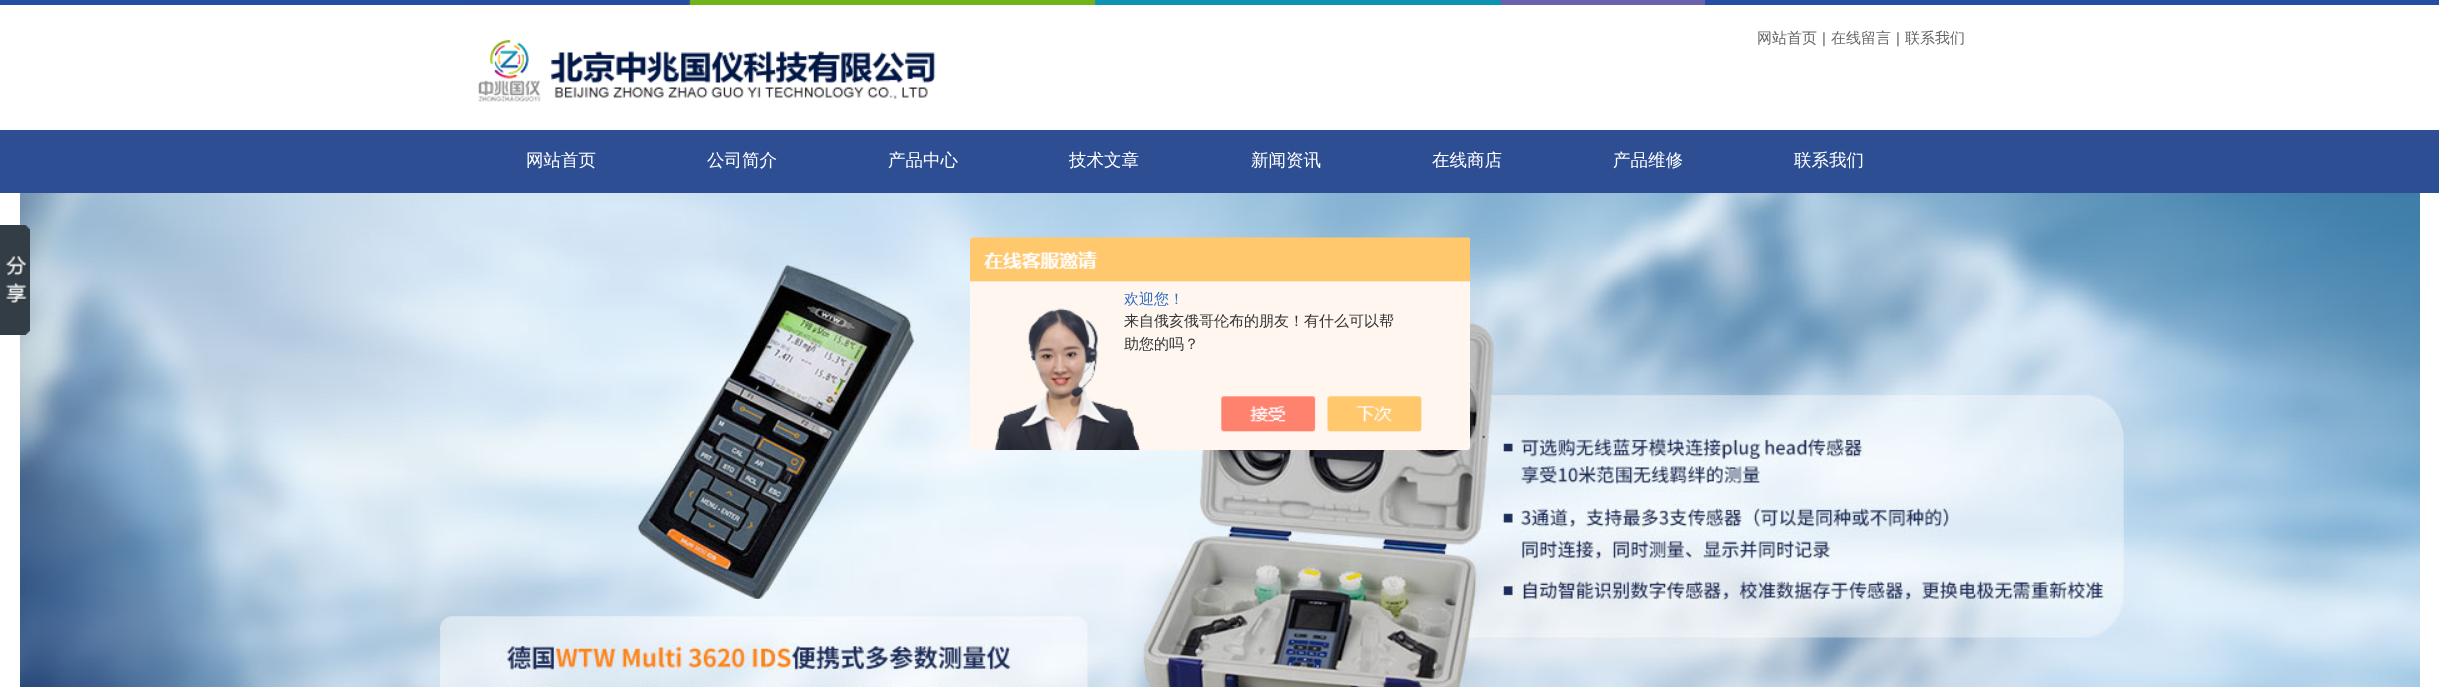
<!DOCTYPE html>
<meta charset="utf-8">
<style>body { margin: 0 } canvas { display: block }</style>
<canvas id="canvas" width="2439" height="687"></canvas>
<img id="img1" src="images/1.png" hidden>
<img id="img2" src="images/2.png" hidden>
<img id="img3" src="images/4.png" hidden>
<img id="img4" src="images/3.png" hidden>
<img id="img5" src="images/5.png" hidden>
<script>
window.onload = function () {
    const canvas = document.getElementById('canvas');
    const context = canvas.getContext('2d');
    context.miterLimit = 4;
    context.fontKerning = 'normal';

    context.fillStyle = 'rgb(255, 255, 255)';
    context.fillRect(0, 0, 2439, 687);
    context.fillStyle = 'rgb(37, 77, 164)';
    context.fillRect(0, 0, 2439, 5);
    context.drawImage(document.getElementById('img1'), 470, 0, 1235, 5);
    context.drawImage(document.getElementById('img2'), 478, 39, 458, 63);
    context.fillStyle = 'rgb(45, 78, 147)';
    context.fillRect(0, 130, 2439, 63);
    context.drawImage(document.getElementById('img3'), 20, 193, 2400, 494);
    context.drawImage(document.getElementById('img4'), 0, 225, 30, 110);
    context.drawImage(document.getElementById('img5'), 970, 237, 500, 213);
    context.font = '500 15px WenQuanYi Zen Hei';
    context.fillStyle = 'rgb(102, 102, 102)';
    context.fillText('网站首页', 1757, 43);
    context.font = '15px Liberation Sans';
    context.fillText('|', 1822, 43);
    context.font = '500 15px WenQuanYi Zen Hei';
    context.fillText('在线留言', 1831, 43);
    context.font = '15px Liberation Sans';
    context.fillText('|', 1896, 43);
    context.font = '500 15px WenQuanYi Zen Hei';
    context.fillText('联系我们', 1905, 43);
    context.font = '500 17.5px WenQuanYi Zen Hei';
    context.fillStyle = 'rgb(255, 255, 255)';
    context.fillText('网站首页', 526, 166);
    context.fillText('公司简介', 707, 166);
    context.fillText('产品中心', 888, 166);
    context.fillText('技术文章', 1069, 166);
    context.fillText('新闻资讯', 1251, 166);
    context.fillText('在线商店', 1432, 166);
    context.fillText('产品维修', 1613, 166);
    context.fillText('联系我们', 1794, 166);
    context.font = '500 15px WenQuanYi Zen Hei';
    context.fillStyle = 'rgb(46, 110, 198)';
    context.fillText('欢迎您！', 1124, 304);
    context.fillStyle = 'rgb(51, 51, 51)';
    context.fillText('来自俄亥俄哥伦布的朋友！有什么可以帮', 1124, 326);
    context.fillText('助您的吗？', 1124, 349);
};
</script>
